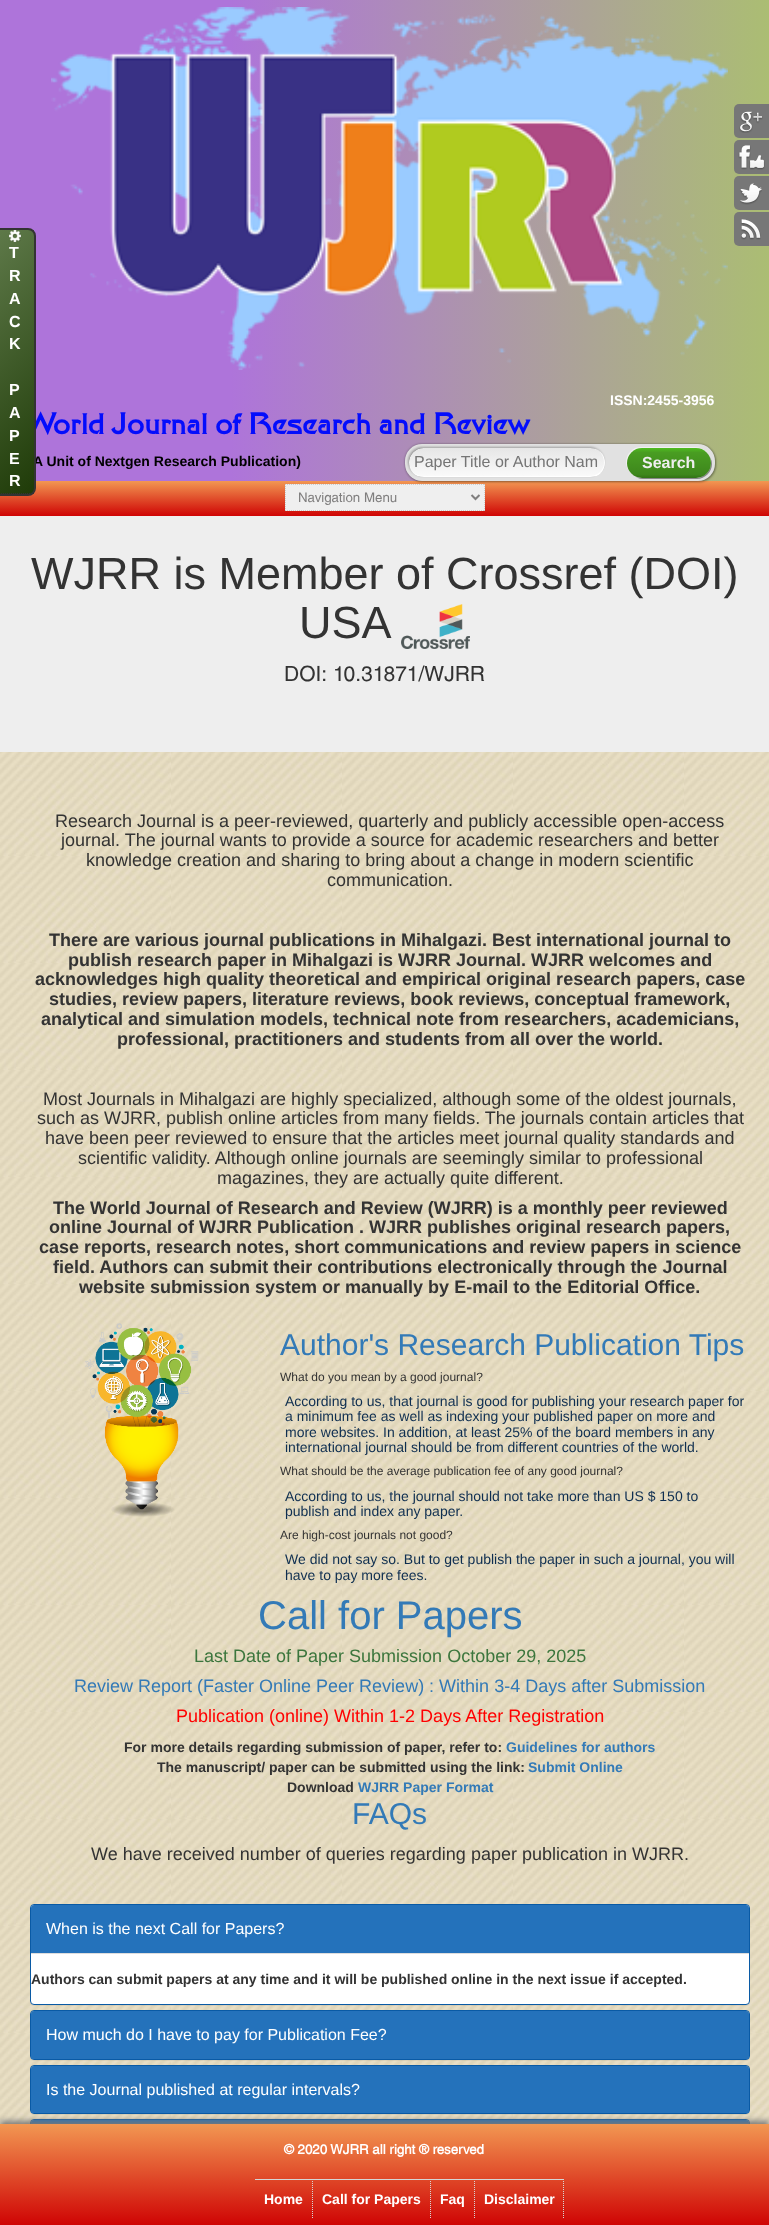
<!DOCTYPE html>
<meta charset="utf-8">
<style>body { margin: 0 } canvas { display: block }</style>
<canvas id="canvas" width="769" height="2225"></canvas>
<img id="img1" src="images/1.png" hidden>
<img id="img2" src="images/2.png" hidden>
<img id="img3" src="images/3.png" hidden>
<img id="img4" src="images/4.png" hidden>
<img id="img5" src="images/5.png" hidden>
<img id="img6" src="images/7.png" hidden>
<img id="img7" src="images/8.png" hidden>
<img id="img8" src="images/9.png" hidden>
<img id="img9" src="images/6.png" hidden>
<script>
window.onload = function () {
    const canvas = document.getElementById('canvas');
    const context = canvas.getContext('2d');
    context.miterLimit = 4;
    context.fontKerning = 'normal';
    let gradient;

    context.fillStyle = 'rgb(255, 255, 255)';
    context.fillRect(0, 0, 769, 2225);
    context.drawImage(document.getElementById('img1'), 0, 752, 769, 1372);
    gradient = context.createLinearGradient(0, 241, 769, 240);
    gradient.addColorStop(0.04, 'rgb(174, 116, 218)');
    gradient.addColorStop(0.3, 'rgb(174, 116, 218)');
    gradient.addColorStop(1, 'rgb(171, 189, 115)');
    context.fillStyle = gradient;
    context.fillRect(0, 0, 769, 481);
    context.fillStyle = 'rgb(119, 119, 119)';
    context.beginPath();
    context.roundRect(734, 104, 35, 34, [5, 0, 0, 5]);
    context.fill();
    context.drawImage(document.getElementById('img2'), 739, 111, 24, 22);
    context.beginPath();
    context.roundRect(734, 140, 35, 34, [5, 0, 0, 5]);
    context.fill();
    context.drawImage(document.getElementById('img3'), 738, 145, 27, 25);
    context.beginPath();
    context.roundRect(734, 176, 35, 34, [5, 0, 0, 5]);
    context.fill();
    context.drawImage(document.getElementById('img4'), 740, 183, 22, 22);
    context.beginPath();
    context.roundRect(734, 212, 35, 34, [5, 0, 0, 5]);
    context.fill();
    context.drawImage(document.getElementById('img5'), 741, 219, 20, 21);
    context.drawImage(document.getElementById('img6'), 51, 7, 677, 363);
    gradient = context.createLinearGradient(385, 481, 385, 516);
    gradient.addColorStop(0, 'rgb(242, 151, 82)');
    gradient.addColorStop(1, 'rgb(207, 4, 4)');
    context.fillStyle = gradient;
    context.fillRect(0, 481, 769, 35);
    context.fillStyle = 'rgba(0, 0, 0, 0.3)';
    context.filter = 'blur(1px)';
    context.beginPath();
    context.roundRect(405, 444, 310, 37, 17);
    context.fill();
    context.filter = 'none';
    context.filter = 'blur(1px)';
    context.beginPath();
    context.roundRect(406, 445, 310, 37, 17);
    context.fill();
    context.filter = 'none';
    context.fillStyle = 'rgb(225, 225, 225)';
    context.beginPath();
    context.roundRect(405, 444, 310, 37, 17);
    context.fill();
    context.fillStyle = 'rgba(0, 0, 0, 0.2)';
    context.filter = 'blur(0.5px)';
    context.beginPath();
    context.roundRect(409, 448, 196, 29, 14.5);
    context.fill();
    context.filter = 'none';
    context.fillStyle = 'rgba(0, 0, 0, 0.3)';
    context.filter = 'blur(1px)';
    context.beginPath();
    context.roundRect(408, 447, 196, 29, 14.5);
    context.fill();
    context.filter = 'none';
    context.save();
    context.beginPath();
    context.roundRect(409, 448, 196, 29, 14.5);
    context.clip();
    gradient = context.createLinearGradient(409, 476, 409, 448);
    gradient.addColorStop(0, 'rgb(250, 250, 250)');
    gradient.addColorStop(1, 'rgb(230, 230, 230)');
    context.fillStyle = gradient;
    context.beginPath();
    context.roundRect(409, 448, 196, 28, [14.5, 14.5, 0, 0]);
    context.fill();
    context.restore();
    context.fillStyle = 'rgba(255, 255, 255, 0.8)';
    context.beginPath();
    context.moveTo(605, 462);
    context.bezierCurveTo(605, 454, 599, 448, 590, 448);
    context.bezierCurveTo(602.5, 448, 608.5, 463.5, 600, 472);
    context.lineTo(601, 473);
    context.bezierCurveTo(603.5, 470, 605, 466.5, 605, 462);
    context.closePath();
    context.fill();
    context.fillStyle = 'rgb(255, 255, 255)';
    context.beginPath();
    context.moveTo(409, 462);
    context.bezierCurveTo(409, 470, 415, 476, 424, 476);
    context.lineTo(590, 476);
    context.bezierCurveTo(594, 476, 598, 474, 600, 472);
    context.lineTo(601, 473);
    context.bezierCurveTo(598, 476, 594, 477, 590, 477);
    context.lineTo(424, 477);
    context.bezierCurveTo(415, 477, 409, 471, 409, 462);
    context.closePath();
    context.fill();
    context.fillStyle = 'rgb(135, 135, 135)';
    context.beginPath();
    context.moveTo(632, 474);
    context.bezierCurveTo(635, 477, 639, 479, 643, 479);
    context.lineTo(697, 479);
    context.bezierCurveTo(705, 479, 712, 472, 712, 464);
    context.bezierCurveTo(712, 460, 710, 456, 707, 453);
    context.bezierCurveTo(710, 456, 711, 459, 711, 463);
    context.bezierCurveTo(711, 471, 704, 478, 696, 478);
    context.lineTo(642, 478);
    context.bezierCurveTo(638, 478, 635, 477, 632, 474);
    context.closePath();
    context.fill();
    context.fillStyle = 'rgba(255, 255, 255, 0.5)';
    context.filter = 'blur(0.5px)';
    context.beginPath();
    context.roundRect(626, 447, 84, 30, 15);
    context.fill();
    context.filter = 'none';
    gradient = context.createLinearGradient(627, 448, 627, 478);
    gradient.addColorStop(0, 'rgb(79, 188, 32)');
    gradient.addColorStop(0.15, 'rgb(73, 157, 34)');
    gradient.addColorStop(0.88, 'rgb(62, 135, 28)');
    gradient.addColorStop(1, 'rgb(49, 114, 21)');
    context.fillStyle = gradient;
    context.beginPath();
    context.roundRect(627, 448, 84, 30, 15);
    context.fill();
    context.fillStyle = 'rgb(239, 239, 239)';
    context.fillRect(285, 484, 200, 27);
    context.beginPath();
    context.moveTo(285, 484.5);
    context.lineTo(485, 484.5);
    context.strokeStyle = 'rgb(204, 204, 204)';
    context.setLineDash([1, 1]);
    context.stroke();
    context.beginPath();
    context.moveTo(484.5, 484);
    context.lineTo(484.5, 511);
    context.stroke();
    context.beginPath();
    context.moveTo(285, 510.5);
    context.lineTo(485, 510.5);
    context.stroke();
    context.beginPath();
    context.moveTo(285.5, 484);
    context.lineTo(285.5, 511);
    context.stroke();
    context.beginPath();
    context.moveTo(471.5, 495);
    context.lineTo(475.5, 499);
    context.lineTo(479.5, 495);
    context.strokeStyle = 'rgb(128, 127, 127)';
    context.lineWidth = 2;
    context.setLineDash([]);
    context.stroke();
    context.fillStyle = 'rgb(238, 238, 238)';
    context.fillRect(0, 516, 769, 236);
    context.drawImage(document.getElementById('img7'), 401, 604, 69, 45);
    context.drawImage(document.getElementById('img8'), 85, 1323, 114, 194);
    context.fillStyle = 'rgba(0, 0, 0, 0.05)';
    context.filter = 'blur(0.5px)';
    context.beginPath();
    context.roundRect(30, 1905, 720, 101, 4);
    context.fill();
    context.filter = 'none';
    context.fillStyle = 'rgb(255, 255, 255)';
    context.beginPath();
    context.roundRect(30.5, 1904.5, 719, 100, 3.5);
    context.fill();
    context.strokeStyle = 'rgb(9, 90, 165)';
    context.lineWidth = 1;
    context.stroke();
    context.fillStyle = 'rgb(36, 114, 187)';
    context.beginPath();
    context.roundRect(31, 1905, 718, 48, [3, 3, 0, 0]);
    context.fill();
    context.fillStyle = 'rgb(221, 221, 221)';
    context.fillRect(31, 1953, 718, 1);
    context.fillStyle = 'rgba(0, 0, 0, 0.05)';
    context.filter = 'blur(0.5px)';
    context.beginPath();
    context.roundRect(30, 2011, 720, 50, 4);
    context.fill();
    context.filter = 'none';
    context.beginPath();
    context.roundRect(30.5, 2010.5, 719, 49, 3.5);
    context.stroke();
    context.fillStyle = 'rgb(36, 114, 187)';
    context.beginPath();
    context.roundRect(31, 2011, 718, 48, [3, 3, 0, 0]);
    context.fill();
    context.fillStyle = 'rgba(0, 0, 0, 0.05)';
    context.filter = 'blur(0.5px)';
    context.beginPath();
    context.roundRect(30, 2066, 720, 49, 4);
    context.fill();
    context.filter = 'none';
    context.beginPath();
    context.roundRect(30.5, 2065.5, 719, 48, 3.5);
    context.stroke();
    context.fillStyle = 'rgb(36, 114, 187)';
    context.beginPath();
    context.roundRect(31, 2066, 718, 47, [3, 3, 0, 0]);
    context.fill();
    context.beginPath();
    context.roundRect(30.5, 2119.5, 719, 49, 3.5);
    context.stroke();
    context.beginPath();
    context.roundRect(31, 2120, 718, 48, [3, 3, 0, 0]);
    context.fill();
    context.fillStyle = 'rgb(119, 119, 119)';
    context.filter = 'blur(3px)';
    context.beginPath();
    context.rect(0, 2121, 769, 101);
    context.fill();
    context.filter = 'none';
    gradient = context.createLinearGradient(385, 2124, 385, 2225);
    gradient.addColorStop(0, 'rgb(242, 151, 82)');
    gradient.addColorStop(1, 'rgb(207, 4, 4)');
    context.fillStyle = gradient;
    context.fillRect(0, 2124, 769, 101);
    context.fillStyle = 'rgb(213, 213, 213)';
    context.fillRect(255, 2179, 309, 1);
    context.beginPath();
    context.moveTo(312.5, 2179);
    context.lineTo(312.5, 2218);
    context.strokeStyle = 'rgb(213, 213, 213)';
    context.setLineDash([1, 1]);
    context.stroke();
    context.beginPath();
    context.moveTo(430.5, 2179);
    context.lineTo(430.5, 2218);
    context.stroke();
    context.beginPath();
    context.moveTo(474.5, 2179);
    context.lineTo(474.5, 2218);
    context.stroke();
    context.beginPath();
    context.moveTo(563.5, 2179);
    context.lineTo(563.5, 2218);
    context.stroke();
    context.font = 'bold 14px Liberation Sans';
    context.fillStyle = 'rgb(255, 255, 255)';
    context.fillText('ISSN:2455-3956', 610, 405);
    context.font = 'bold 30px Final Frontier';
    context.fillStyle = 'rgb(4, 13, 252)';
    context.fillText('World Journal of Research and Review', 25, 434);
    context.font = 'bold 14px Liberation Sans';
    context.fillStyle = 'rgb(0, 0, 0)';
    context.fillText('A Unit of Nextgen Research Publication)', 33, 466);
    gradient = context.createLinearGradient(-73, 282, 86, 442);
    gradient.addColorStop(0, 'rgb(98, 125, 77)');
    gradient.addColorStop(1, 'rgb(31, 59, 8)');
    context.fillStyle = gradient;
    context.fillRect(0, 230, 34, 264);
    context.beginPath();
    context.moveTo(-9, 229);
    context.lineTo(28, 229);
    context.bezierCurveTo(32, 229, 35, 232, 35, 236);
    context.lineTo(35, 488);
    context.bezierCurveTo(35, 492, 32, 495, 28, 495);
    context.lineTo(-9, 495);
    context.closePath();
    context.strokeStyle = 'rgb(51, 51, 51)';
    context.lineWidth = 2;
    context.setLineDash([]);
    context.stroke();
    context.font = 'bold 16px Liberation Sans';
    context.fillStyle = 'rgb(255, 255, 255)';
    context.fillText('R', 9, 486);
    context.fillText('E', 9, 464);
    context.fillText('P', 9, 441);
    context.fillText('A', 9, 418);
    context.fillText('P', 9, 395);
    context.fillText('K', 9, 349);
    context.fillText('C', 9, 327);
    context.fillText('A', 9, 304);
    context.fillText('R', 9, 281);
    context.fillText('T', 9, 258);
    context.drawImage(document.getElementById('img9'), 9, 230, 12, 12);
    context.beginPath();
    context.moveTo(-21, 493.5);
    context.lineTo(34, 493.5);
    context.lineWidth = 1;
    context.setLineDash([1, 1]);
    context.stroke();
    context.font = '16px Liberation Sans';
    context.fillStyle = 'rgb(117, 117, 117)';
    context.fillText('Paper Title or Author Nam', 414, 467);
    context.font = 'bold 16px Liberation Sans';
    context.fillStyle = 'rgb(238, 238, 238)';
    context.fillText('Search', 642, 468);
    context.font = '13.3px Helvetica';
    context.fillStyle = 'rgb(128, 127, 127)';
    context.fillText('Navigation Menu', 298, 502);
    context.font = '45px Liberation Sans';
    context.fillStyle = 'rgb(51, 51, 51)';
    context.fillText('WJRR is Member of Crossref (DOI)', 31, 589);
    context.fillText('USA', 299, 638);
    context.font = '21px Helvetica';
    context.fillText('DOI: 10.31871/WJRR', 284, 681);
    context.font = '18px Liberation Sans';
    context.fillText('Research Journal is a peer-reviewed, quarterly and publicly accessible open-access', 55, 827);
    context.fillText('journal. The journal wants to provide a source for academic researchers and better', 61, 846);
    context.fillText('knowledge creation and sharing to bring about a change in modern scientific', 86, 866);
    context.fillText('communication.', 327, 886);
    context.font = 'bold 18px Liberation Sans';
    context.fillText('There are various journal publications in Mihalgazi. Best international journal to', 49, 946);
    context.fillText('publish research paper in Mihalgazi is WJRR Journal. WJRR welcomes and', 68, 966);
    context.fillText('acknowledges high quality theoretical and empirical original research papers, case', 35, 985);
    context.fillText('studies, review papers, literature reviews, book reviews, conceptual framework,', 49, 1005);
    context.fillText('analytical and simulation models, technical note from researchers, academicians,', 41, 1025);
    context.fillText('professional, practitioners and students from all over the world.', 117, 1045);
    context.font = '18px Liberation Sans';
    context.fillText('Most Journals in Mihalgazi are highly specialized, although some of the oldest journals,', 43, 1105);
    context.fillText('such as WJRR, publish online articles from many fields. The journals contain articles that', 37, 1124);
    context.fillText('have been peer reviewed to ensure that the articles meet journal quality standards and', 45, 1144);
    context.fillText('scientific validity. Although online journals are seemingly similar to professional', 78, 1164);
    context.fillText('magazines, they are actually quite different.', 217, 1184);
    context.font = 'bold 18px Liberation Sans';
    context.fillText('The World Journal of Research and Review (WJRR) is a monthly peer reviewed', 53, 1214);
    context.fillText('online Journal of WJRR Publication . WJRR publishes original research papers,', 49, 1233);
    context.fillText('case reports, research notes, short communications and review papers in science', 39, 1253);
    context.fillText('field. Authors can submit their contributions electronically through the Journal', 53, 1273);
    context.fillText('website submission system or manually by E-mail to the Editorial Office.', 79, 1293);
    context.font = '30px Liberation Sans';
    context.fillStyle = 'rgb(51, 122, 183)';
    context.fillText('Author\'s Research Publication Tips', 280, 1355);
    context.font = '12px Liberation Sans';
    context.fillStyle = 'rgb(51, 51, 51)';
    context.fillText('What do you mean by a good journal?', 280, 1381);
    context.font = '14px Liberation Sans';
    context.fillStyle = 'rgb(14, 46, 80)';
    context.fillText('According to us, that journal is good for publishing your research paper for', 285, 1406);
    context.fillText('a minimum fee as well as indexing your published paper on more and', 285, 1421);
    context.fillText('more websites. In addition, at least 25% of the board members in any', 285, 1437);
    context.fillText('international journal should be from different countries of the world.', 285, 1452);
    context.font = '12px Liberation Sans';
    context.fillStyle = 'rgb(51, 51, 51)';
    context.fillText('What should be the average publication fee of any good journal?', 280, 1475);
    context.font = '14px Liberation Sans';
    context.fillStyle = 'rgb(14, 46, 80)';
    context.fillText('According to us, the journal should not take more than US $ 150 to', 285, 1501);
    context.fillText('publish and index any paper.', 285, 1516);
    context.font = '12px Liberation Sans';
    context.fillStyle = 'rgb(51, 51, 51)';
    context.fillText('Are high-cost journals not good?', 280, 1539);
    context.font = '14px Liberation Sans';
    context.fillStyle = 'rgb(14, 46, 80)';
    context.fillText('We did not say so. But to get publish the paper in such a journal, you will', 285, 1564);
    context.fillText('have to pay more fees.', 285, 1580);
    context.font = '40px Liberation Sans';
    context.fillStyle = 'rgb(51, 122, 183)';
    context.fillText('Call for Papers', 258, 1629);
    context.font = '18px Liberation Sans';
    context.fillStyle = 'rgb(60, 118, 61)';
    context.fillText('Last Date of Paper Submission October 29, 2025', 194, 1662);
    context.fillStyle = 'rgb(51, 122, 183)';
    context.fillText('Review Report (Faster Online Peer Review) : Within 3-4 Days after Submission', 74, 1692);
    context.fillStyle = 'rgb(255, 0, 0)';
    context.fillText('Publication (online) Within 1-2 Days After Registration', 176, 1722);
    context.font = 'bold 14px Liberation Sans';
    context.fillStyle = 'rgb(51, 51, 51)';
    context.fillText('For more details regarding submission of paper, refer to:', 124, 1752);
    context.fillStyle = 'rgb(51, 122, 183)';
    context.fillText('Guidelines for authors', 506, 1752);
    context.fillStyle = 'rgb(51, 51, 51)';
    context.fillText('The manuscript/ paper can be submitted using the link:', 157, 1772);
    context.fillStyle = 'rgb(51, 122, 183)';
    context.fillText('Submit Online', 528, 1772);
    context.fillStyle = 'rgb(51, 51, 51)';
    context.fillText('Download', 287, 1792);
    context.fillStyle = 'rgb(51, 122, 183)';
    context.fillText('WJRR Paper Format', 358, 1792);
    context.font = '30px Liberation Sans';
    context.fillText('FAQs', 352, 1824);
    context.font = '18px Liberation Sans';
    context.fillStyle = 'rgb(51, 51, 51)';
    context.fillText('We have received number of queries regarding paper publication in WJRR.', 91, 1860);
    context.font = '16px Liberation Sans';
    context.fillStyle = 'rgb(255, 255, 255)';
    context.fillText('When is the next Call for Papers?', 46, 1934);
    context.font = 'bold 14px Liberation Sans';
    context.fillStyle = 'rgb(51, 51, 51)';
    context.fillText('Authors can submit papers at any time and it will be published online in the next issue if accepted.', 31, 1984);
    context.font = '16px Liberation Sans';
    context.fillStyle = 'rgb(255, 255, 255)';
    context.fillText('How much do I have to pay for Publication Fee?', 46, 2040);
    context.fillText('Is the Journal published at regular intervals?', 46, 2095);
    context.font = 'bold 13.3px Helvetica';
    context.fillText('© 2020 WJRR all right ® reserved', 284, 2154);
    context.font = 'bold 14px Liberation Sans';
    context.fillText('Home', 264, 2204);
    context.fillText('Call for Papers', 322, 2204);
    context.fillText('Faq', 440, 2204);
    context.fillText('Disclaimer', 484, 2204);
};
</script>
